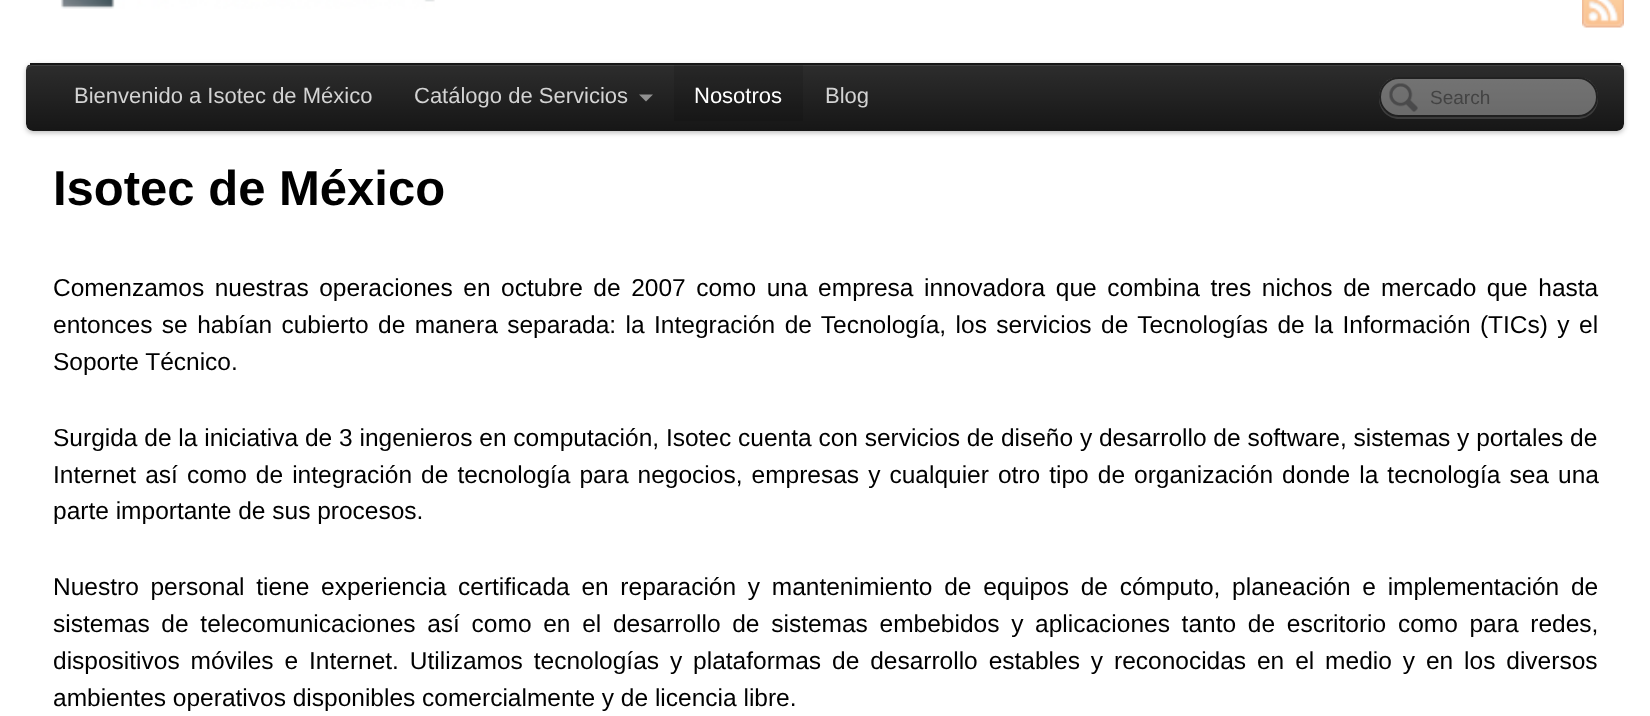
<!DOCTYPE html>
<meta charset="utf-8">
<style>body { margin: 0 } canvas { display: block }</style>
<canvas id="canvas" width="1650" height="716"></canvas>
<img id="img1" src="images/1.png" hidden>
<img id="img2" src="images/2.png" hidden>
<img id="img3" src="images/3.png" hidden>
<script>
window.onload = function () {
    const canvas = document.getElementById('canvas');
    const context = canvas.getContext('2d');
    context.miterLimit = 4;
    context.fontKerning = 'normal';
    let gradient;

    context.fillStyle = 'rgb(255, 255, 255)';
    context.fillRect(0, 0, 1650, 716);
    context.drawImage(document.getElementById('img1'), 60, 0, 375, 9);
    context.drawImage(document.getElementById('img2'), 1582, 0, 42, 28);
    context.save();
    context.beginPath();
    context.moveTo(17, 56);
    context.lineTo(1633, 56);
    context.lineTo(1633, 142);
    context.lineTo(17, 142);
    context.closePath();
    context.moveTo(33, 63);
    context.lineTo(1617, 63);
    context.bezierCurveTo(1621, 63, 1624, 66, 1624, 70);
    context.lineTo(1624, 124);
    context.bezierCurveTo(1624, 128, 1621, 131, 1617, 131);
    context.lineTo(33, 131);
    context.bezierCurveTo(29, 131, 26, 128, 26, 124);
    context.lineTo(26, 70);
    context.bezierCurveTo(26, 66, 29, 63, 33, 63);
    context.closePath();
    context.clip('evenodd');
    context.fillStyle = 'rgba(0, 0, 0, 0.25)';
    context.filter = 'blur(2.5px)';
    context.beginPath();
    context.roundRect(26, 65, 1598, 68, 7);
    context.fill();
    context.filter = 'none';
    context.restore();
    context.fillStyle = 'rgba(0, 0, 0, 0.12)';
    context.beginPath();
    context.roundRect(26, 63, 1598, 68, 7);
    context.fill();
    context.save();
    context.beginPath();
    context.roundRect(26, 63, 1598, 68, 7);
    context.clip();
    gradient = context.createLinearGradient(825, 65, 825, 131);
    gradient.addColorStop(0, 'rgba(0, 0, 0, 0.8)');
    gradient.addColorStop(1, 'rgba(0, 0, 0, 0.9)');
    context.fillStyle = gradient;
    context.beginPath();
    context.roundRect(26, 65, 1598, 66, [0, 0, 7, 7]);
    context.fill();
    context.restore();
    context.fillStyle = 'rgba(255, 255, 255, 0.1)';
    context.beginPath();
    context.moveTo(33, 66);
    context.lineTo(1617, 66);
    context.bezierCurveTo(1621, 66, 1624, 69, 1624, 72);
    context.bezierCurveTo(1624, 68, 1622, 65, 1617, 65);
    context.lineTo(33, 65);
    context.bezierCurveTo(31, 65, 27, 66, 26, 69);
    context.lineTo(26, 70);
    context.bezierCurveTo(27, 68, 30, 66, 33, 66);
    context.closePath();
    context.fill();
    context.fillStyle = 'rgba(0, 0, 0, 0.9)';
    context.fillRect(30, 63, 1591, 2);
    context.fillStyle = 'rgb(144, 144, 144)';
    context.beginPath();
    context.moveTo(639, 94.5);
    context.lineTo(653, 94.5);
    context.lineTo(646, 101.5);
    context.closePath();
    context.fill();
    context.fillStyle = 'rgba(0, 0, 0, 0.1)';
    context.fillRect(674, 65, 129, 56);
    context.fillStyle = 'rgba(255, 255, 255, 0.15)';
    context.beginPath();
    context.moveTo(1379, 98);
    context.lineTo(1379, 99);
    context.bezierCurveTo(1379, 110, 1388, 119, 1399, 119);
    context.lineTo(1578, 119);
    context.bezierCurveTo(1589, 119, 1598, 110, 1598, 99);
    context.lineTo(1598, 95);
    context.lineTo(1598, 97);
    context.bezierCurveTo(1598, 108, 1589, 117, 1578, 117);
    context.lineTo(1399, 117);
    context.bezierCurveTo(1388, 117, 1380, 109, 1379, 98);
    context.closePath();
    context.fill();
    context.fillStyle = 'rgba(255, 255, 255, 0.35)';
    context.beginPath();
    context.roundRect(1379, 77, 219, 40, 20);
    context.fill();
    context.drawImage(document.getElementById('img3'), 1389, 83, 29, 29);
    context.beginPath();
    context.roundRect(1380, 78, 217, 38, 19);
    context.strokeStyle = 'rgba(0, 0, 0, 0.7)';
    context.lineWidth = 2;
    context.stroke();
    context.font = '22px Liberation Sans';
    context.fillStyle = 'rgb(211, 211, 211)';
    context.fillText('Bienvenido a Isotec de México', 74, 103);
    context.fillText('Catálogo de Servicios', 414, 103);
    context.fillStyle = 'rgb(255, 255, 255)';
    context.fillText('Nosotros', 694, 103);
    context.fillStyle = 'rgb(211, 211, 211)';
    context.fillText('Blog', 825, 103);
    context.font = '19px Liberation Sans';
    context.fillStyle = 'rgb(67, 67, 67)';
    context.fillText('Search', 1430, 104);
    context.font = 'bold 49px Liberation Sans';
    context.fillStyle = 'rgb(0, 0, 0)';
    context.fillText('Isotec de México', 53, 205);
    context.wordSpacing = '3.75px';
    context.font = '24.5px Liberation Sans';
    context.fillText('Comenzamos nuestras operaciones en octubre de 2007 como una empresa innovadora que combina tres nichos de mercado que hasta', 53, 296);
    context.wordSpacing = '2.6px';
    context.fillText('entonces se habían cubierto de manera separada: la Integración de Tecnología, los servicios de Tecnologías de la Información (TICs) y el', 53, 333);
    context.wordSpacing = '0px';
    context.fillText('Soporte Técnico.', 53, 370);
    context.fillText('Surgida de la iniciativa de 3 ingenieros en computación, Isotec cuenta con servicios de diseño y desarrollo de software, sistemas y portales de', 53, 446);
    context.wordSpacing = '2.25px';
    context.fillText('Internet así como de integración de tecnología para negocios, empresas y cualquier otro tipo de organización donde la tecnología sea una', 53, 483);
    context.wordSpacing = '0px';
    context.fillText('parte importante de sus procesos.', 53, 519);
    context.wordSpacing = '4.9px';
    context.fillText('Nuestro personal tiene experiencia certificada en reparación y mantenimiento de equipos de cómputo, planeación e implementación de', 53, 595);
    context.fillText('sistemas de telecomunicaciones así como en el desarrollo de sistemas embebidos y aplicaciones tanto de escritorio como para redes,', 53, 632);
    context.wordSpacing = '4.1px';
    context.fillText('dispositivos móviles e Internet. Utilizamos tecnologías y plataformas de desarrollo estables y reconocidas en el medio y en los diversos', 53, 669);
    context.wordSpacing = '0px';
    context.fillText('ambientes operativos disponibles comercialmente y de licencia libre.', 53, 706);
};
</script>
